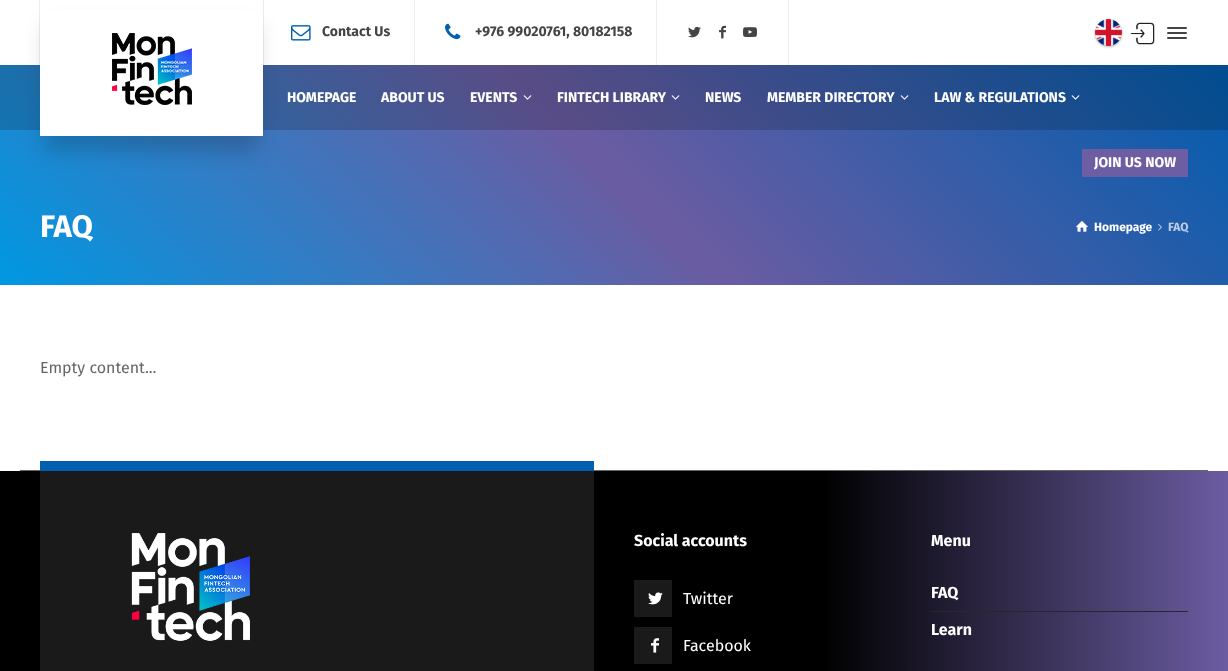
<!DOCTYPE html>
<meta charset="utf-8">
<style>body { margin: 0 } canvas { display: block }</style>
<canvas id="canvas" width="1228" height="671"></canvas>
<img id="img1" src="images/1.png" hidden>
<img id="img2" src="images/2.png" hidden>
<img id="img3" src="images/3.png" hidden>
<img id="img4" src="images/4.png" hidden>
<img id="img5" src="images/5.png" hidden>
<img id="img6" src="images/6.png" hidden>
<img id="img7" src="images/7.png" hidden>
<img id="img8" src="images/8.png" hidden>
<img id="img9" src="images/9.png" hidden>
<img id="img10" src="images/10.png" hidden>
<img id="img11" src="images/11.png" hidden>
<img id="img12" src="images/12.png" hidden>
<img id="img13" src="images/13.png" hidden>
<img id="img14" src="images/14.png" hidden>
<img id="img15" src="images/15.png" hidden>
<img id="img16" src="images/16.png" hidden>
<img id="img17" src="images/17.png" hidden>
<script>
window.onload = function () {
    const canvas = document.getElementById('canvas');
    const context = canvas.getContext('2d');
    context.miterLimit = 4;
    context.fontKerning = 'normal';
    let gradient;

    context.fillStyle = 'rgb(255, 255, 255)';
    context.fillRect(0, 0, 1228, 671);
    gradient = context.createLinearGradient(252, 537, 976, -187);
    gradient.addColorStop(0, 'rgb(0, 152, 226)');
    gradient.addColorStop(0.5, 'rgb(107, 92, 162)');
    gradient.addColorStop(1, 'rgb(0, 93, 174)');
    context.fillStyle = gradient;
    context.fillRect(0, 130, 1228, 155);
    gradient = context.createLinearGradient(252, 537, 976, -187);
    gradient.addColorStop(0, 'rgb(0, 126, 188)');
    gradient.addColorStop(0.5, 'rgb(89, 76, 134)');
    gradient.addColorStop(1, 'rgb(0, 77, 144)');
    context.fillStyle = gradient;
    context.fillRect(0, 65, 1228, 65);
    context.fillStyle = 'rgba(0, 0, 0, 0.17)';
    context.filter = 'blur(9.5px)';
    context.beginPath();
    context.rect(45, 25, 213, 126);
    context.fill();
    context.filter = 'none';
    context.fillStyle = 'rgb(255, 255, 255)';
    context.fillRect(40, 10, 223, 126);
    context.fillStyle = 'rgba(0, 0, 0, 0.07)';
    context.fillRect(39, 0, 1, 65);
    context.drawImage(document.getElementById('img1'), 112, 33, 80, 72);
    context.fillRect(263, 0, 1, 65);
    context.fillStyle = 'rgb(237, 237, 237)';
    context.fillRect(414, 0, 1, 65);
    context.drawImage(document.getElementById('img2'), 291, 25, 20, 16);
    context.fillRect(656, 0, 1, 65);
    context.drawImage(document.getElementById('img3'), 445, 23, 16, 17);
    context.fillRect(788, 0, 1, 65);
    context.drawImage(document.getElementById('img4'), 688, 26, 13, 12);
    context.drawImage(document.getElementById('img5'), 719, 25, 7, 14);
    context.drawImage(document.getElementById('img6'), 743, 27, 14, 10);
    context.fillStyle = 'rgba(0, 0, 0, 0.3)';
    context.filter = 'blur(1px)';
    context.beginPath();
    context.roundRect(1095, 20, 27, 27, 13.5);
    context.fill();
    context.filter = 'none';
    context.drawImage(document.getElementById('img7'), 1095, 19, 27, 27);
    context.drawImage(document.getElementById('img8'), 1130, 22, 25, 23);
    context.fillStyle = 'rgb(68, 68, 68)';
    context.beginPath();
    context.roundRect(1167, 27, 20, 2, 1);
    context.fill();
    context.beginPath();
    context.roundRect(1167, 32, 20, 2, 1);
    context.fill();
    context.beginPath();
    context.roundRect(1167, 37, 20, 2, 1);
    context.fill();
    context.drawImage(document.getElementById('img9'), 523, 95, 9, 5);
    context.drawImage(document.getElementById('img10'), 671, 95, 9, 5);
    context.drawImage(document.getElementById('img11'), 900, 95, 9, 5);
    context.drawImage(document.getElementById('img12'), 1071, 95, 9, 5);
    context.fillStyle = 'rgb(109, 94, 163)';
    context.fillRect(1082, 149, 106, 28);
    context.drawImage(document.getElementById('img13'), 1076, 221, 12, 11);
    context.drawImage(document.getElementById('img14'), 1158, 224, 4, 7);
    context.fillStyle = 'rgb(102, 102, 102)';
    context.fillRect(20, 470, 1188, 1);
    gradient = context.createLinearGradient(0, 662, 1228, 662);
    gradient.addColorStop(0, 'rgb(0, 0, 0)');
    gradient.addColorStop(0.67, 'rgb(0, 0, 0)');
    gradient.addColorStop(1, 'rgb(107, 92, 162)');
    context.fillStyle = gradient;
    context.fillRect(0, 471, 1228, 200);
    context.fillStyle = 'rgb(26, 26, 26)';
    context.fillRect(40, 471, 554, 200);
    context.fillStyle = 'rgb(0, 95, 175)';
    context.fillRect(40, 461, 554, 10);
    context.drawImage(document.getElementById('img15'), 131, 533, 119, 108);
    context.fillStyle = 'rgb(26, 26, 26)';
    context.fillRect(634, 580, 38, 37);
    context.drawImage(document.getElementById('img16'), 648, 592, 15, 13);
    context.fillRect(634, 627, 38, 37);
    context.drawImage(document.getElementById('img17'), 651, 638, 8, 15);
    context.fillStyle = 'rgb(40, 40, 40)';
    context.fillRect(931, 611, 257, 1);
    context.font = 'bold 14px Fira Sans';
    context.fillStyle = 'rgb(68, 68, 68)';
    context.fillText('Contact Us', 322, 36);
    context.fillText('+976 99020761, 80182158', 475, 36);
    context.fillStyle = 'rgb(255, 255, 255)';
    context.fillText('HOMEPAGE', 287, 102);
    context.fillText('ABOUT US', 381, 102);
    context.fillText('EVENTS', 470, 102);
    context.fillText('FINTECH LIBRARY', 557, 102);
    context.fillText('NEWS', 705, 102);
    context.fillText('MEMBER DIRECTORY', 767, 102);
    context.fillText('LAW & REGULATIONS', 934, 102);
    context.fillText('JOIN US NOW', 1094, 167);
    context.font = 'bold 31px Fira Sans';
    context.fillText('FAQ', 40, 237);
    context.font = 'bold 12px Fira Sans';
    context.fillText('Homepage', 1094, 231);
    context.fillStyle = 'rgb(188, 206, 230)';
    context.fillText('FAQ', 1168, 231);
    context.font = '16px Fira Sans';
    context.fillStyle = 'rgb(102, 102, 102)';
    context.fillText('Empty content...', 40, 373);
    context.font = 'bold 16px Fira Sans';
    context.fillStyle = 'rgb(255, 255, 255)';
    context.fillText('Social accounts', 634, 546);
    context.font = '16px Fira Sans';
    context.fillText('Twitter', 683, 604);
    context.fillText('Facebook', 683, 651);
    context.font = 'bold 16px Fira Sans';
    context.fillText('Menu', 931, 546);
    context.fillText('FAQ', 931, 598);
    context.fillText('Learn', 931, 635);
};
</script>
